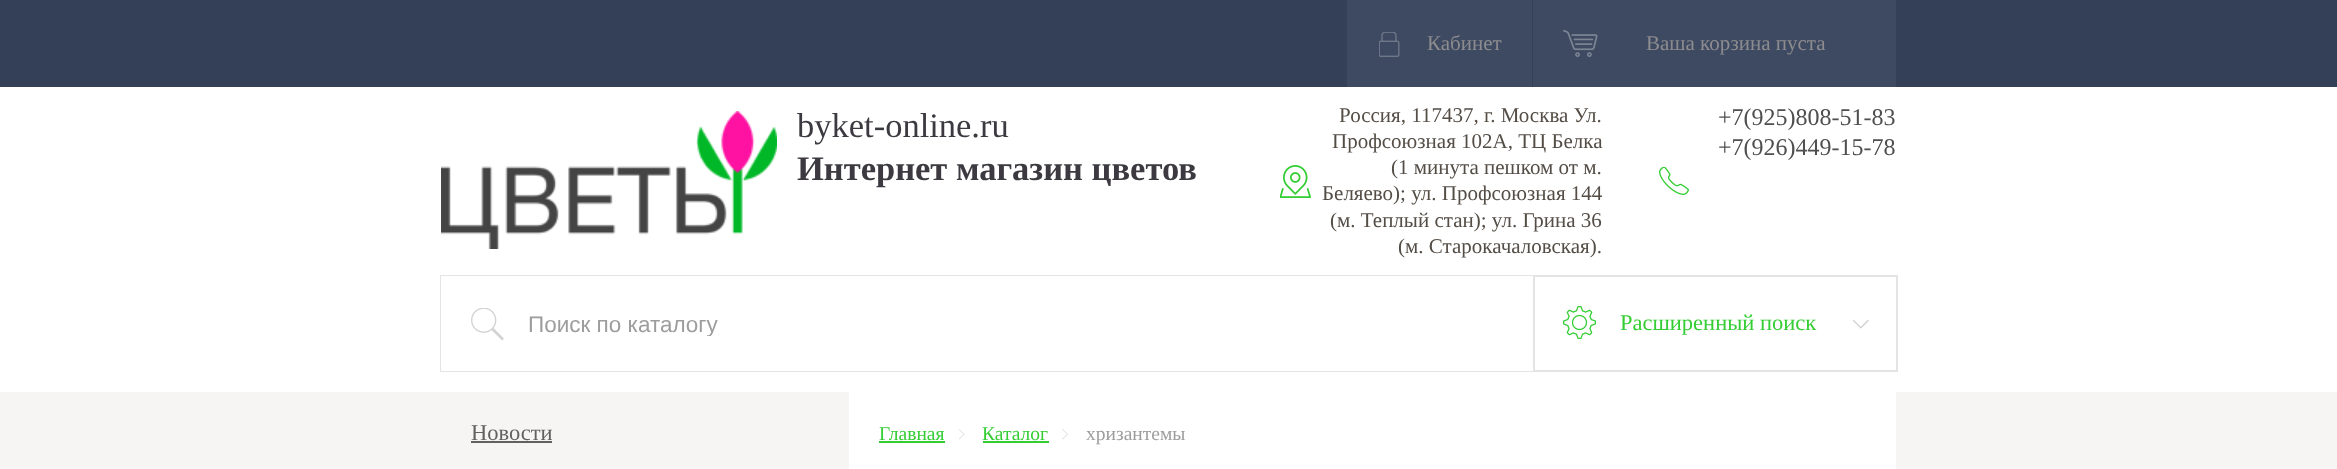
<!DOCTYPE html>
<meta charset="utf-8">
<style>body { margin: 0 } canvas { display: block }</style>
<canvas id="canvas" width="2337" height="469"></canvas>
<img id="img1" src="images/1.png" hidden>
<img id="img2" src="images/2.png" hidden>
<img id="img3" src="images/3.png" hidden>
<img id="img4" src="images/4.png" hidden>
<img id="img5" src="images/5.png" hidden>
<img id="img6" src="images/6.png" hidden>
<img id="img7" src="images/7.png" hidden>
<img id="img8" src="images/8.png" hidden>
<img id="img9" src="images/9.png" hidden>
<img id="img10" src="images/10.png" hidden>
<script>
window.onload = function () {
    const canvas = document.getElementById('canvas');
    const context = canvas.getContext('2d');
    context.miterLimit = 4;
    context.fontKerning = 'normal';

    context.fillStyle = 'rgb(247, 244, 244)';
    context.fillRect(0, 0, 2337, 469);
    context.fillStyle = 'rgb(52, 64, 88)';
    context.fillRect(0, 0, 2337, 87);
    context.fillStyle = 'rgb(62, 74, 97)';
    context.fillRect(1347, 0, 185, 87);
    context.drawImage(document.getElementById('img1'), 1379, 32, 21, 25);
    context.fillRect(1533, 0, 363, 87);
    context.drawImage(document.getElementById('img2'), 1563, 30, 35, 27);
    context.fillStyle = 'rgb(255, 255, 255)';
    context.fillRect(0, 87, 2337, 305);
    context.drawImage(document.getElementById('img3'), 441, 111, 336, 138);
    context.drawImage(document.getElementById('img4'), 1280, 165, 31, 33);
    context.drawImage(document.getElementById('img5'), 1659, 167, 30, 28);
    context.strokeStyle = 'rgb(228, 228, 228)';
    context.lineWidth = 2;
    context.strokeRect(441, 276, 1456, 95);
    context.fillRect(441, 276, 1092, 95);
    context.drawImage(document.getElementById('img6'), 471, 308, 33, 33);
    context.fillStyle = 'rgb(228, 228, 228)';
    context.fillRect(1533, 275, 2, 96);
    context.drawImage(document.getElementById('img7'), 1563, 306, 33, 33);
    context.drawImage(document.getElementById('img8'), 1853, 320, 16, 9);
    context.fillStyle = 'rgb(97, 97, 97)';
    context.fillRect(471, 441, 81, 2);
    context.fillStyle = 'rgb(255, 255, 255)';
    context.fillRect(849, 392, 1047, 77);
    context.fillStyle = 'rgb(52, 205, 52)';
    context.fillRect(879, 441, 66, 2);
    context.drawImage(document.getElementById('img9'), 959, 429, 6, 11);
    context.fillRect(983, 441, 66, 2);
    context.drawImage(document.getElementById('img10'), 1062, 429, 6, 11);
    context.font = '21px Liberation Serif';
    context.fillStyle = 'rgb(141, 140, 143)';
    context.fillText('Кабинет', 1427, 50);
    context.fillText('Ваша корзина пуста', 1646, 50);
    context.font = '34.5px Liberation Serif';
    context.fillStyle = 'rgb(60, 57, 64)';
    context.fillText('byket-online.ru', 797, 137);
    context.font = 'bold 34.5px Liberation Serif';
    context.fillText('Интернет магазин цветов', 797, 180);
    context.font = '21px Liberation Serif';
    context.fillStyle = 'rgb(84, 77, 70)';
    context.fillText('Россия, 117437, г. Москва Ул.', 1339, 122);
    context.fillText('Профсоюзная 102А, ТЦ Белка', 1332, 148);
    context.fillText('(1 минута пешком от м.', 1391, 174);
    context.fillText('Беляево); ул. Профсоюзная 144', 1322, 200);
    context.fillText('(м. Теплый стан); ул. Грина 36', 1330, 227);
    context.fillText('(м. Старокачаловская).', 1398, 253);
    context.font = '24px Liberation Serif';
    context.fillStyle = 'rgb(80, 79, 79)';
    context.fillText('+7(925)808-51-83', 1718, 125);
    context.fillText('+7(926)449-15-78', 1718, 155);
    context.save();
    context.beginPath();
    context.rect(528, 311, 989, 25);
    context.clip();
    context.font = '22.5px Liberation Sans';
    context.fillStyle = 'rgb(157, 157, 157)';
    context.fillText('Поиск по каталогу', 528, 332);
    context.restore();
    context.font = '22.5px Liberation Serif';
    context.fillStyle = 'rgb(52, 205, 52)';
    context.fillText('Расширенный поиск', 1620, 330);
    context.fillStyle = 'rgb(97, 97, 97)';
    context.fillText('Новости', 471, 440);
    context.font = '19.5px Liberation Serif';
    context.fillStyle = 'rgb(52, 205, 52)';
    context.fillText('Главная', 879, 440);
    context.fillText('Каталог', 982, 440);
    context.fillStyle = 'rgb(157, 157, 157)';
    context.fillText('хризантемы', 1086, 440);
};
</script>
